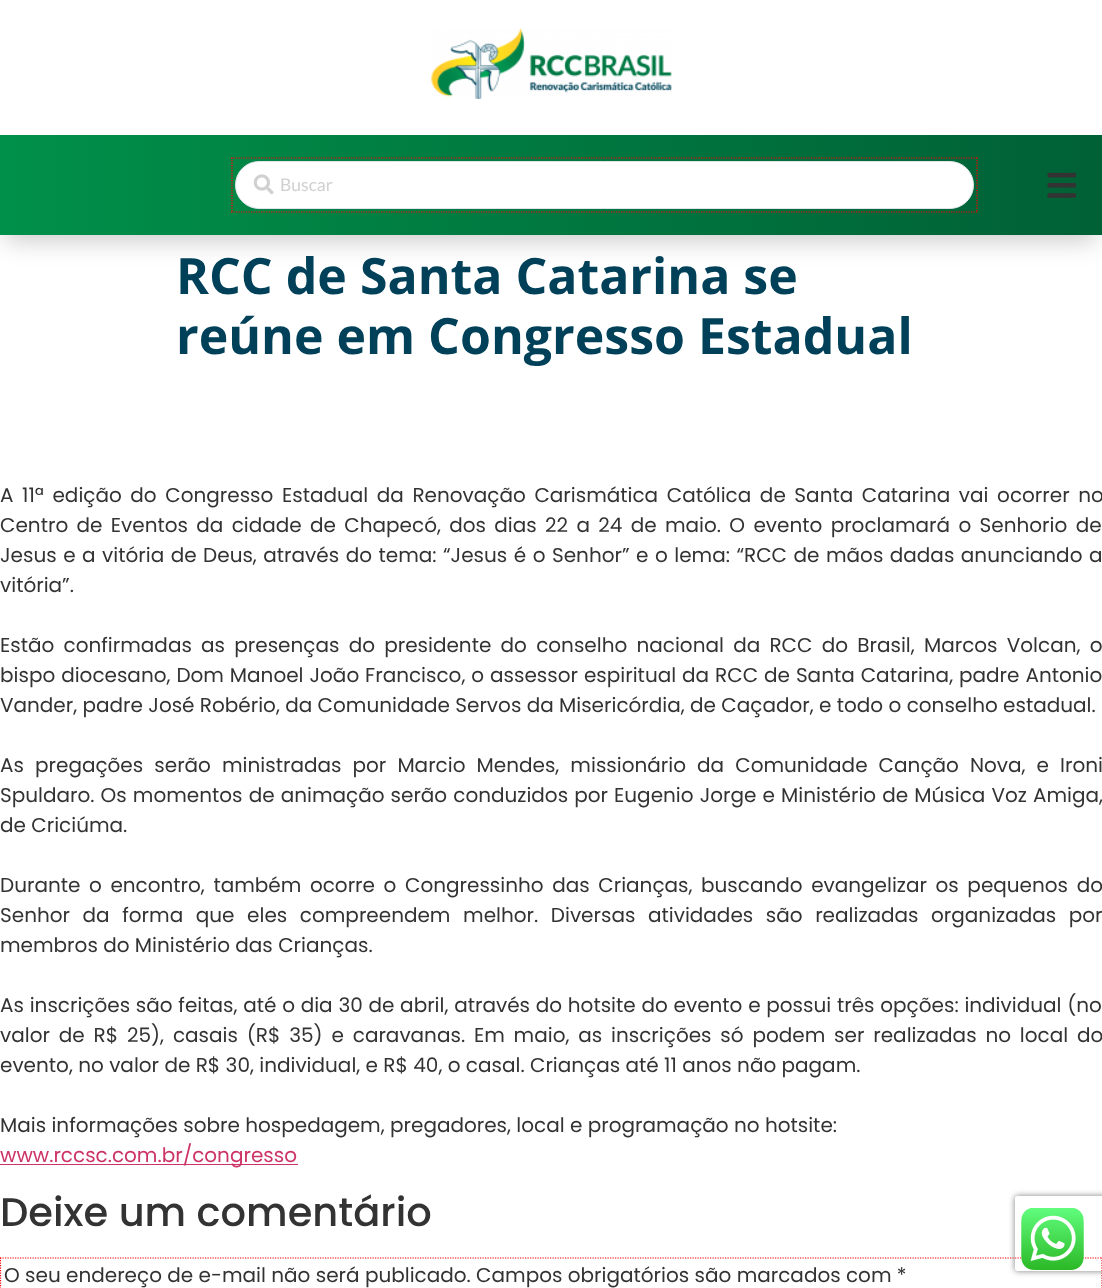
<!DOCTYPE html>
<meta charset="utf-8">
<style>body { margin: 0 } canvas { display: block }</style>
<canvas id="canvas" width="1102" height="1288"></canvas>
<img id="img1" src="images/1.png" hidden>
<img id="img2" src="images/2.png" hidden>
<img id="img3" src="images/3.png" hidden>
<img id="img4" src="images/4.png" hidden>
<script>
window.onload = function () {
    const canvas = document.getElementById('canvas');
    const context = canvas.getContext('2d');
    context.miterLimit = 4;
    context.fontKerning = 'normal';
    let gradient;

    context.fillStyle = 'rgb(255, 255, 255)';
    context.fillRect(0, 0, 1102, 1288);
    context.drawImage(document.getElementById('img1'), 431, 27, 241, 72);
    context.fillStyle = 'rgba(0, 0, 0, 0.2)';
    context.filter = 'blur(12.5px)';
    context.beginPath();
    context.rect(6, 154, 1090, 87);
    context.fill();
    context.filter = 'none';
    gradient = context.createLinearGradient(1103, 185, 0, 185);
    gradient.addColorStop(0, 'rgb(0, 96, 54)');
    gradient.addColorStop(1, 'rgb(0, 144, 73)');
    context.fillStyle = gradient;
    context.fillRect(0, 135, 1102, 100);
    context.beginPath();
    context.moveTo(231, 158);
    context.lineTo(977.5, 158);
    context.strokeStyle = 'rgb(255, 0, 0)';
    context.lineWidth = 1.2;
    context.setLineDash([1.25, 1.25]);
    context.stroke();
    context.beginPath();
    context.moveTo(977, 157.5);
    context.lineTo(977, 212.5);
    context.stroke();
    context.beginPath();
    context.moveTo(231, 212);
    context.lineTo(977.5, 212);
    context.stroke();
    context.beginPath();
    context.moveTo(232, 157.5);
    context.lineTo(232, 212.5);
    context.stroke();
    context.fillStyle = 'rgb(255, 255, 255)';
    context.beginPath();
    context.roundRect(235.5, 161.5, 738, 47, 23.5);
    context.fill();
    context.strokeStyle = 'rgb(225, 229, 235)';
    context.lineWidth = 1;
    context.setLineDash([]);
    context.stroke();
    context.drawImage(document.getElementById('img2'), 253, 174, 21, 21);
    context.drawImage(document.getElementById('img3'), 1047, 172, 29, 26);
    context.fillStyle = 'rgb(204, 51, 102)';
    context.fillRect(0, 1164, 298, 1);
    context.beginPath();
    context.moveTo(0, 1258);
    context.lineTo(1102.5, 1258);
    context.strokeStyle = 'rgb(255, 0, 0)';
    context.lineWidth = 1.2;
    context.setLineDash([1.25, 1.25]);
    context.stroke();
    context.beginPath();
    context.moveTo(1102, 1257.5);
    context.lineTo(1102, 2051);
    context.stroke();
    context.beginPath();
    context.moveTo(0.5, 1257.5);
    context.lineTo(0.5, 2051);
    context.stroke();
    context.save();
    context.beginPath();
    context.moveTo(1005, 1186);
    context.lineTo(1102, 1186);
    context.lineTo(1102, 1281);
    context.lineTo(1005, 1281);
    context.closePath();
    context.moveTo(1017.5, 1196);
    context.lineTo(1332.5, 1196);
    context.bezierCurveTo(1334, 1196, 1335, 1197, 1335, 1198.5);
    context.lineTo(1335, 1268.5);
    context.bezierCurveTo(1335, 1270, 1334, 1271, 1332.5, 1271);
    context.lineTo(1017.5, 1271);
    context.bezierCurveTo(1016, 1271, 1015, 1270, 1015, 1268.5);
    context.lineTo(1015, 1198.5);
    context.bezierCurveTo(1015, 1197, 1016, 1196, 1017.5, 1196);
    context.closePath();
    context.clip('evenodd');
    context.fillStyle = 'rgb(128, 128, 128)';
    context.filter = 'blur(3px)';
    context.beginPath();
    context.roundRect(1015, 1196, 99, 75, 2.5);
    context.fill();
    context.filter = 'none';
    context.restore();
    context.drawImage(document.getElementById('img4'), 1021, 1208, 63, 62);
    context.font = '17.5px Lato';
    context.fillStyle = 'rgb(208, 208, 208)';
    context.fillText('Buscar', 280, 191);
    context.font = 'bold 50px Open Sans';
    context.fillStyle = 'rgb(0, 64, 88)';
    context.fillText('RCC de Santa Catarina se', 176, 294);
    context.fillText('reúne em Congresso Estadual', 176, 354);
    context.wordSpacing = '3.25px';
    context.font = '20px Poppins';
    context.fillStyle = 'rgb(51, 51, 51)';
    context.fillText('A 11ª edição do Congresso Estadual da Renovação Carismática Católica de Santa Catarina vai ocorrer no', 0, 502);
    context.wordSpacing = '3px';
    context.fillText('Centro de Eventos da cidade de Chapecó, dos dias 22 a 24 de maio. O evento proclamará o Senhorio de', 0, 532);
    context.wordSpacing = '1.15px';
    context.fillText('Jesus e a vitória de Deus, através do tema: “Jesus é o Senhor” e o lema: “RCC de mãos dadas anunciando a', 0, 562);
    context.wordSpacing = '0px';
    context.fillText('vitória”.', 0, 592);
    context.wordSpacing = '3.9px';
    context.fillText('Estão confirmadas as presenças do presidente do conselho nacional da RCC do Brasil, Marcos Volcan, o', 0, 652);
    context.wordSpacing = '0.6px';
    context.fillText('bispo diocesano, Dom Manoel João Francisco, o assessor espiritual da RCC de Santa Catarina, padre Antonio', 0, 682);
    context.wordSpacing = '0px';
    context.fillText('Vander, padre José Robério, da Comunidade Servos da Misericórdia, de Caçador, e todo o conselho estadual.', 0, 712);
    context.wordSpacing = '5.75px';
    context.fillText('As pregações serão ministradas por Marcio Mendes, missionário da Comunidade Canção Nova, e Ironi', 0, 772);
    context.wordSpacing = '0.75px';
    context.fillText('Spuldaro. Os momentos de animação serão conduzidos por Eugenio Jorge e Ministério de Música Voz Amiga,', 0, 802);
    context.wordSpacing = '0px';
    context.fillText('de Criciúma.', 0, 832);
    context.wordSpacing = '3.25px';
    context.fillText('Durante o encontro, também ocorre o Congressinho das Crianças, buscando evangelizar os pequenos do', 0, 892);
    context.wordSpacing = '7.25px';
    context.fillText('Senhor da forma que eles compreendem melhor. Diversas atividades são realizadas organizadas por', 0, 922);
    context.wordSpacing = '0px';
    context.fillText('membros do Ministério das Crianças.', 0, 952);
    context.wordSpacing = '0.4px';
    context.fillText('As inscrições são feitas, até o dia 30 de abril, através do hotsite do evento e possui três opções: individual (no', 0, 1012);
    context.wordSpacing = '3.5px';
    context.fillText('valor de R$ 25), casais (R$ 35) e caravanas. Em maio, as inscrições só podem ser realizadas no local do', 0, 1042);
    context.wordSpacing = '0px';
    context.fillText('evento, no valor de R$ 30, individual, e R$ 40, o casal. Crianças até 11 anos não pagam.', 0, 1072);
    context.fillText('Mais informações sobre hospedagem, pregadores, local e programação no hotsite:', 0, 1132);
    context.fillStyle = 'rgb(204, 51, 102)';
    context.fillText('www.rccsc.com.br/congresso', 0, 1162);
    context.font = '500 40px Poppins';
    context.fillStyle = 'rgb(51, 51, 51)';
    context.fillText('Deixe um comentário', 0, 1226);
    context.font = '20px Poppins';
    context.fillText('O seu endereço de e-mail não será publicado. Campos obrigatórios são marcados com *', 4, 1282);
};
</script>
